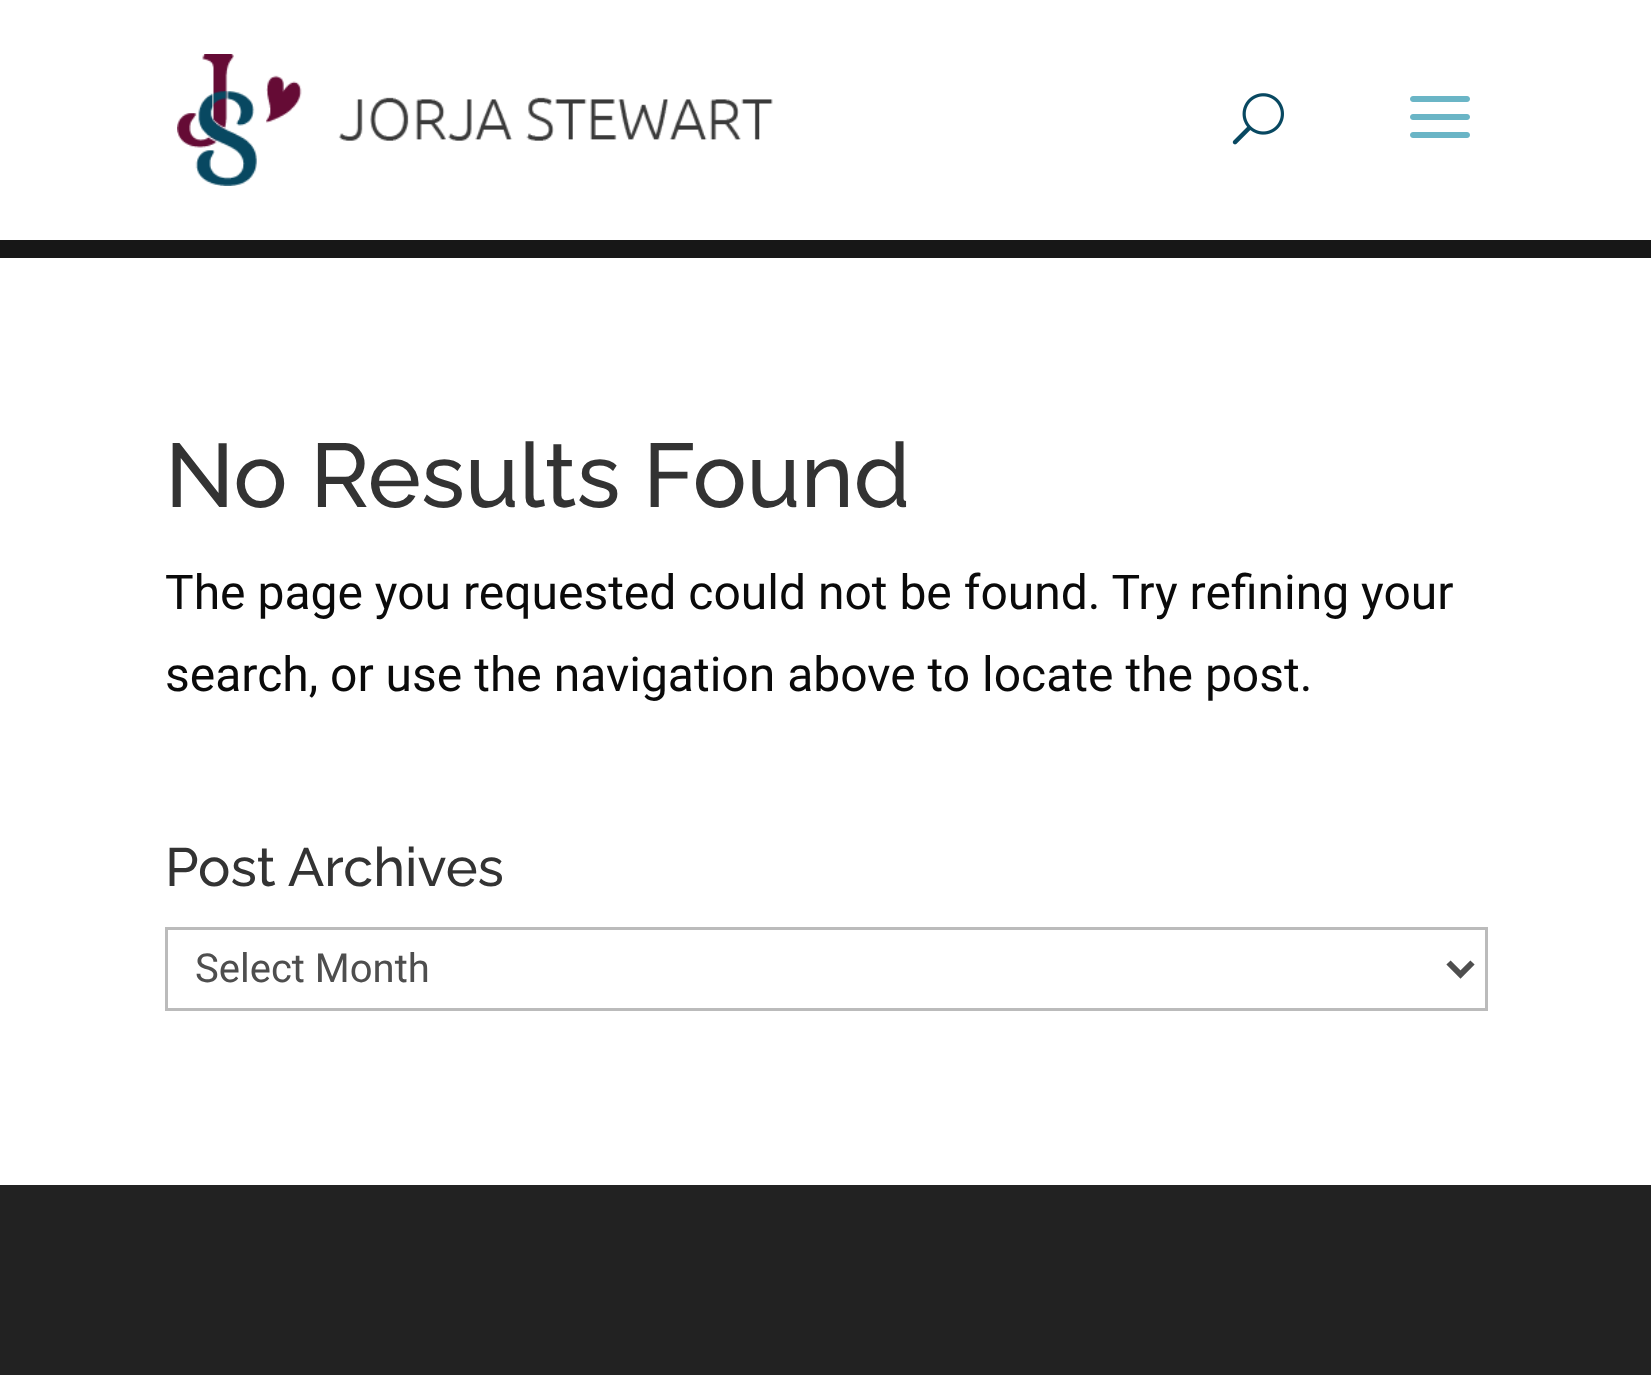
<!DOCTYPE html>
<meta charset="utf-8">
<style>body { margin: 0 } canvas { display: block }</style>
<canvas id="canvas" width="1651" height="1375"></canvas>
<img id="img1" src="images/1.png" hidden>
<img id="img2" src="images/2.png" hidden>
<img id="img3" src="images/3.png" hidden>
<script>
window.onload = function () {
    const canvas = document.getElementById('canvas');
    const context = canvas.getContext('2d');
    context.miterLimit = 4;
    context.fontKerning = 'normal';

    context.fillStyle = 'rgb(23, 23, 23)';
    context.fillRect(0, 0, 1651, 1375);
    context.fillStyle = 'rgb(255, 255, 255)';
    context.fillRect(0, 0, 1651, 240);
    context.drawImage(document.getElementById('img1'), 177, 54, 596, 132);
    context.drawImage(document.getElementById('img2'), 1232, 93, 52, 52);
    context.drawImage(document.getElementById('img3'), 1410, 96, 60, 42);
    context.fillRect(0, 258, 1651, 927);
    context.strokeStyle = 'rgb(187, 187, 187)';
    context.lineWidth = 3;
    context.strokeRect(166.5, 928.5, 1320, 81);
    context.beginPath();
    context.moveTo(1448.5, 962.5);
    context.lineTo(1460.5, 974.5);
    context.lineTo(1472.5, 962.5);
    context.strokeStyle = 'rgb(78, 78, 78)';
    context.lineWidth = 6;
    context.stroke();
    context.fillStyle = 'rgb(34, 34, 34)';
    context.fillRect(0, 1185, 1651, 190);
    context.font = '500 90px Raleway';
    context.fillStyle = 'rgb(51, 51, 51)';
    context.fillText('No Results Found', 165, 507);
    context.font = '48px Roboto';
    context.fillStyle = 'rgb(10, 10, 10)';
    context.fillText('The page you requested could not be found. Try refining your', 165, 609);
    context.fillText('search, or use the navigation above to locate the post.', 165, 691);
    context.font = '500 54px Raleway';
    context.fillStyle = 'rgb(51, 51, 51)';
    context.fillText('Post Archives', 165, 886);
    context.font = '40px Roboto';
    context.fillStyle = 'rgb(78, 78, 78)';
    context.fillText('Select Month', 195, 982);
};
</script>
